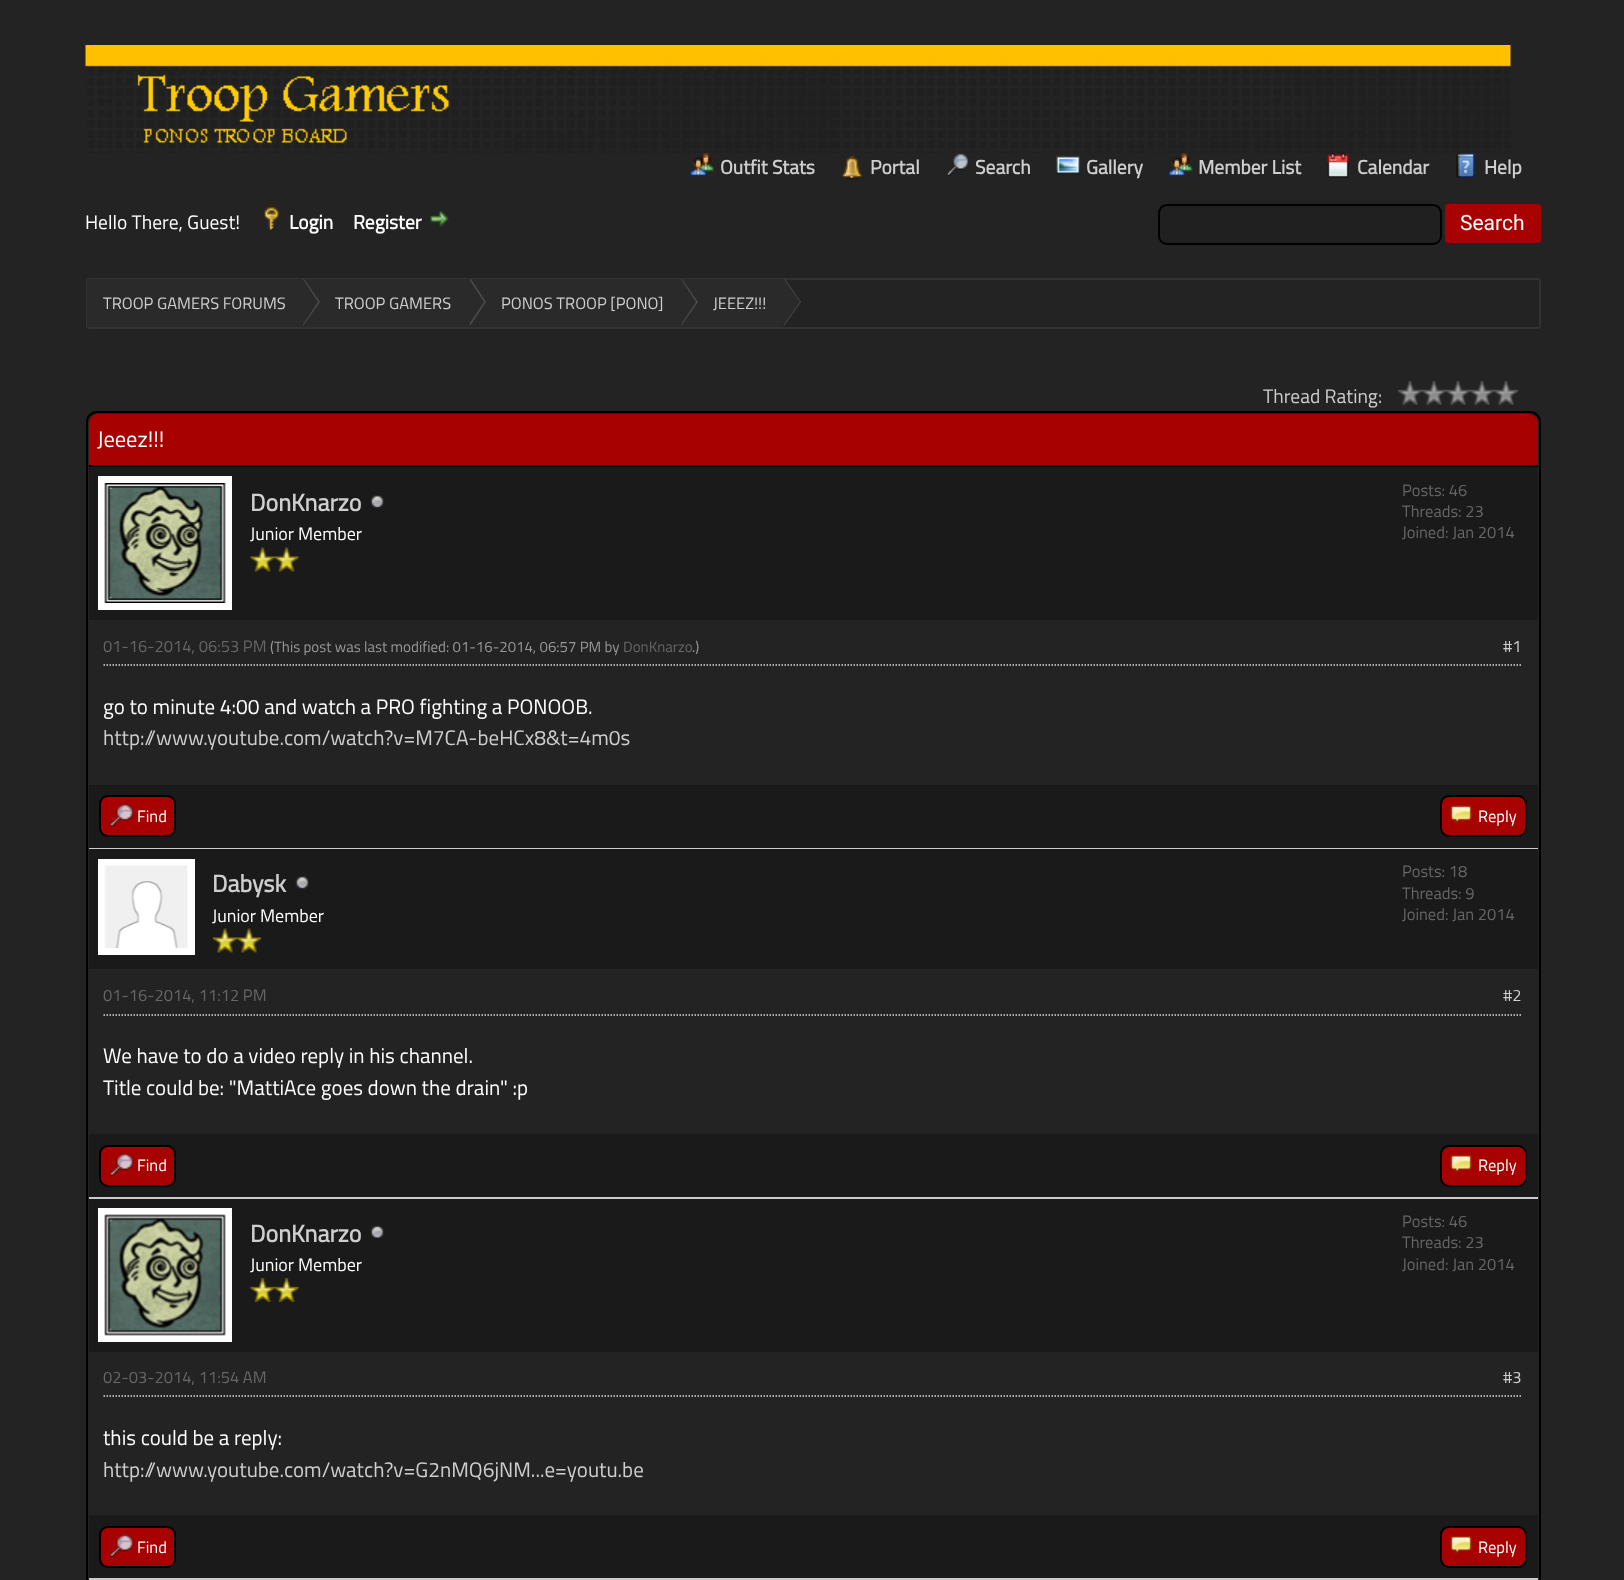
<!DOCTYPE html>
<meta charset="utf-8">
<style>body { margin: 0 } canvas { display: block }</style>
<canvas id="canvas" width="1624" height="1580"></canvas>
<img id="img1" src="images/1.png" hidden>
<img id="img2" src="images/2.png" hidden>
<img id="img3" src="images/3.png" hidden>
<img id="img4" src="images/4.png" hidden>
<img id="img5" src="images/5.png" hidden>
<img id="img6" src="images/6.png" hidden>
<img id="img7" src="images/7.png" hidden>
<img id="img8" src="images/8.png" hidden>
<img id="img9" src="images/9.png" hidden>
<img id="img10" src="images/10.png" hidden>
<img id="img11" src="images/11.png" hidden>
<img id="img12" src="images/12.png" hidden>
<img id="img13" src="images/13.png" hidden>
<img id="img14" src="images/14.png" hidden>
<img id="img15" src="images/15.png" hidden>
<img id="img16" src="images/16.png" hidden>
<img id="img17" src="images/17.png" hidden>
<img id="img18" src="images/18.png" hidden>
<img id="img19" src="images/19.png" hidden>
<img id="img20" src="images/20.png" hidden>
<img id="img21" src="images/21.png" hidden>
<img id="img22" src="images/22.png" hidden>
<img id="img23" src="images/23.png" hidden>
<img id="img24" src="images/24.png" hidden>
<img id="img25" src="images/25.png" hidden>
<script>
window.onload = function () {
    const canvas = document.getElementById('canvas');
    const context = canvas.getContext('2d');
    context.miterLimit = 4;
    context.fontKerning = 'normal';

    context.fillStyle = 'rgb(35, 35, 35)';
    context.fillRect(0, 0, 1624, 1580);
    context.drawImage(document.getElementById('img1'), 85, 45, 1426, 108);
    context.drawImage(document.getElementById('img2'), 690, 153, 24, 24);
    context.drawImage(document.getElementById('img3'), 841, 155, 22, 25);
    context.drawImage(document.getElementById('img4'), 947, 153, 22, 23);
    context.drawImage(document.getElementById('img5'), 1056, 155, 24, 20);
    context.drawImage(document.getElementById('img6'), 1168, 153, 25, 24);
    context.drawImage(document.getElementById('img7'), 1327, 153, 22, 25);
    context.drawImage(document.getElementById('img8'), 1456, 153, 19, 25);
    context.drawImage(document.getElementById('img9'), 263, 207, 17, 25);
    context.drawImage(document.getElementById('img10'), 430, 211, 19, 16);
    context.fillStyle = 'rgb(32, 32, 32)';
    context.beginPath();
    context.roundRect(1159, 205, 282, 39, 8);
    context.fill();
    context.strokeStyle = 'rgb(0, 0, 0)';
    context.lineWidth = 2;
    context.stroke();
    context.fillStyle = 'rgb(168, 1, 1)';
    context.beginPath();
    context.roundRect(1445, 204, 96, 39, 3);
    context.fill();
    context.beginPath();
    context.roundRect(87, 279, 1453, 49, 2);
    context.strokeStyle = 'rgb(50, 50, 50)';
    context.stroke();
    context.fillStyle = 'rgb(42, 42, 42)';
    context.beginPath();
    context.roundRect(87, 279, 215, 48, [1.5, 0, 0, 1.5]);
    context.fill();
    context.fillRect(302, 279, 481, 48);
    context.fillStyle = 'rgb(74, 74, 74)';
    context.beginPath();
    context.moveTo(303, 326);
    context.lineTo(320, 302);
    context.lineTo(304, 279);
    context.lineTo(303, 279);
    context.closePath();
    context.fill();
    context.fillStyle = 'rgb(42, 42, 42)';
    context.beginPath();
    context.moveTo(302, 326);
    context.lineTo(318, 302);
    context.lineTo(303, 279);
    context.lineTo(302, 279);
    context.closePath();
    context.fill();
    context.fillStyle = 'rgb(74, 74, 74)';
    context.beginPath();
    context.moveTo(470, 326);
    context.lineTo(486, 302);
    context.lineTo(471, 279);
    context.lineTo(470, 279);
    context.closePath();
    context.fill();
    context.fillStyle = 'rgb(42, 42, 42)';
    context.beginPath();
    context.moveTo(468, 326);
    context.lineTo(484, 302);
    context.lineTo(469, 279);
    context.lineTo(468, 279);
    context.closePath();
    context.fill();
    context.fillStyle = 'rgb(74, 74, 74)';
    context.beginPath();
    context.moveTo(681, 326);
    context.lineTo(698, 302);
    context.lineTo(682, 279);
    context.lineTo(681, 279);
    context.closePath();
    context.fill();
    context.fillStyle = 'rgb(42, 42, 42)';
    context.beginPath();
    context.moveTo(680, 326);
    context.lineTo(696, 302);
    context.lineTo(681, 279);
    context.lineTo(680, 279);
    context.closePath();
    context.fill();
    context.fillStyle = 'rgb(74, 74, 74)';
    context.beginPath();
    context.moveTo(784, 326);
    context.lineTo(801, 302);
    context.lineTo(785, 279);
    context.lineTo(784, 279);
    context.closePath();
    context.fill();
    context.fillStyle = 'rgb(42, 42, 42)';
    context.beginPath();
    context.moveTo(783, 326);
    context.lineTo(800, 302);
    context.lineTo(784, 279);
    context.lineTo(783, 279);
    context.closePath();
    context.fill();
    context.drawImage(document.getElementById('img11'), 1398, 381, 120, 24);
    context.beginPath();
    context.roundRect(87, 412, 1453, 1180, 10);
    context.strokeStyle = 'rgb(0, 0, 0)';
    context.stroke();
    context.fillStyle = 'rgb(168, 1, 1)';
    context.beginPath();
    context.roundRect(89, 414, 1449, 53, [9, 9, 0, 0]);
    context.fill();
    context.fillStyle = 'rgb(0, 0, 0)';
    context.fillRect(89, 465, 1449, 2);
    context.fillStyle = 'rgb(26, 26, 26)';
    context.fillRect(89, 467, 1449, 153);
    context.fillStyle = 'rgb(255, 255, 255)';
    context.fillRect(98, 476, 134, 134);
    context.drawImage(document.getElementById('img12'), 104, 483, 122, 120);
    context.drawImage(document.getElementById('img13'), 370, 495, 14, 13);
    context.drawImage(document.getElementById('img14'), 250, 547, 25, 25);
    context.drawImage(document.getElementById('img15'), 274, 547, 25, 25);
    context.beginPath();
    context.moveTo(103.5, 665);
    context.lineTo(1522.5, 665);
    context.strokeStyle = 'rgb(221, 221, 221)';
    context.lineWidth = 1.5;
    context.setLineDash([1.5, 1.5]);
    context.stroke();
    context.fillStyle = 'rgb(26, 26, 26)';
    context.fillRect(89, 785, 1449, 63);
    context.fillStyle = 'rgb(204, 204, 204)';
    context.fillRect(89, 848, 1449, 1);
    context.fillStyle = 'rgb(168, 1, 1)';
    context.beginPath();
    context.roundRect(100, 796, 75, 40, 8);
    context.fill();
    context.strokeStyle = 'rgb(0, 0, 0)';
    context.lineWidth = 2;
    context.setLineDash([]);
    context.stroke();
    context.drawImage(document.getElementById('img16'), 109, 804, 25, 23);
    context.beginPath();
    context.roundRect(1441, 796, 85, 40, 8);
    context.fill();
    context.stroke();
    context.drawImage(document.getElementById('img17'), 1450, 805, 22, 19);
    context.fillStyle = 'rgb(26, 26, 26)';
    context.fillRect(89, 849, 1449, 120);
    context.fillStyle = 'rgb(255, 255, 255)';
    context.fillRect(98, 859, 97, 96);
    context.drawImage(document.getElementById('img18'), 104, 865, 84, 83);
    context.drawImage(document.getElementById('img13'), 295, 876, 14, 13);
    context.drawImage(document.getElementById('img19'), 213, 928, 24, 25);
    context.drawImage(document.getElementById('img19'), 237, 928, 24, 25);
    context.beginPath();
    context.moveTo(103.5, 1015);
    context.lineTo(1522.5, 1015);
    context.strokeStyle = 'rgb(221, 221, 221)';
    context.lineWidth = 1.5;
    context.setLineDash([1.5, 1.5]);
    context.stroke();
    context.fillStyle = 'rgb(26, 26, 26)';
    context.fillRect(89, 1134, 1449, 63);
    context.fillStyle = 'rgb(204, 204, 204)';
    context.fillRect(89, 1197, 1449, 2);
    context.fillStyle = 'rgb(168, 1, 1)';
    context.beginPath();
    context.roundRect(100, 1146, 75, 40, 8);
    context.fill();
    context.strokeStyle = 'rgb(0, 0, 0)';
    context.lineWidth = 2;
    context.setLineDash([]);
    context.stroke();
    context.drawImage(document.getElementById('img20'), 109, 1153, 25, 24);
    context.beginPath();
    context.roundRect(1441, 1146, 85, 40, 8);
    context.fill();
    context.stroke();
    context.drawImage(document.getElementById('img21'), 1450, 1154, 22, 20);
    context.fillStyle = 'rgb(26, 26, 26)';
    context.fillRect(89, 1199, 1449, 153);
    context.fillStyle = 'rgb(255, 255, 255)';
    context.fillRect(98, 1208, 134, 134);
    context.drawImage(document.getElementById('img22'), 104, 1214, 122, 122);
    context.drawImage(document.getElementById('img23'), 370, 1225, 14, 14);
    context.drawImage(document.getElementById('img24'), 250, 1278, 25, 24);
    context.drawImage(document.getElementById('img25'), 274, 1278, 25, 24);
    context.beginPath();
    context.moveTo(103.5, 1396);
    context.lineTo(1522.5, 1396);
    context.strokeStyle = 'rgb(221, 221, 221)';
    context.lineWidth = 1.5;
    context.setLineDash([1.5, 1.5]);
    context.stroke();
    context.fillStyle = 'rgb(26, 26, 26)';
    context.fillRect(89, 1515, 1449, 63);
    context.fillStyle = 'rgb(204, 204, 204)';
    context.fillRect(89, 1578, 1449, 2);
    context.fillStyle = 'rgb(168, 1, 1)';
    context.beginPath();
    context.roundRect(100, 1527, 75, 40, 8);
    context.fill();
    context.strokeStyle = 'rgb(0, 0, 0)';
    context.lineWidth = 2;
    context.setLineDash([]);
    context.stroke();
    context.drawImage(document.getElementById('img20'), 109, 1534, 25, 24);
    context.beginPath();
    context.roundRect(1441, 1527, 85, 40, 8);
    context.fill();
    context.stroke();
    context.drawImage(document.getElementById('img21'), 1450, 1535, 22, 20);
    context.font = 'bold 19.5px Titillium Web';
    context.fillStyle = 'rgb(206, 206, 206)';
    context.fillText('Outfit Stats', 720, 174);
    context.fillText('Portal', 870, 174);
    context.fillText('Search', 975, 174);
    context.fillText('Gallery', 1086, 174);
    context.fillText('Member List', 1198, 174);
    context.fillText('Calendar', 1357, 174);
    context.fillText('Help', 1484, 174);
    context.font = '19.5px Titillium Web';
    context.fillStyle = 'rgb(255, 255, 255)';
    context.fillText('Hello There, Guest!', 85, 229);
    context.font = 'bold 19.5px Titillium Web';
    context.fillText('Login', 289, 229);
    context.fillText('Register', 353, 229);
    context.font = '21px Roboto';
    context.fillText('Search', 1460, 230);
    context.font = '16.5px Titillium Web';
    context.fillStyle = 'rgb(206, 206, 206)';
    context.fillText('TROOP GAMERS FORUMS', 103, 309);
    context.fillText('TROOP GAMERS', 335, 309);
    context.fillText('PONOS TROOP [PONO]', 501, 309);
    context.fillText('JEEEZ!!!', 713, 309);
    context.font = '19.5px Titillium Web';
    context.fillText('Thread Rating:', 1263, 403);
    context.font = '22.5px Titillium Web';
    context.fillStyle = 'rgb(255, 255, 255)';
    context.fillText('Jeeez!!!', 97, 447);
    context.font = 'bold 24px Titillium Web';
    context.fillStyle = 'rgb(206, 206, 206)';
    context.fillText('DonKnarzo', 250, 511);
    context.font = '18px Titillium Web';
    context.fillStyle = 'rgb(255, 255, 255)';
    context.fillText('Junior Member', 250, 540);
    context.font = '16.5px Titillium Web';
    context.fillStyle = 'rgb(102, 102, 102)';
    context.fillText('Posts: 46', 1402, 496);
    context.fillText('Threads: 23', 1402, 517);
    context.fillText('Joined: Jan 2014', 1402, 538);
    context.fillText('01-16-2014, 06:53 PM', 103, 652);
    context.font = '15px Titillium Web';
    context.fillStyle = 'rgb(153, 153, 153)';
    context.fillText('(This post was last modified: 01-16-2014, 06:57 PM by', 270, 652);
    context.fillStyle = 'rgb(102, 102, 102)';
    context.fillText('DonKnarzo', 623, 652);
    context.fillStyle = 'rgb(153, 153, 153)';
    context.fillText('.)', 692, 652);
    context.font = '16.5px Titillium Web';
    context.fillStyle = 'rgb(206, 206, 206)';
    context.fillText('#1', 1503, 652);
    context.font = '21px Titillium Web';
    context.fillStyle = 'rgb(255, 255, 255)';
    context.fillText('go to minute 4:00 and watch a PRO fighting a PONOOB.', 103, 714);
    context.fillStyle = 'rgb(206, 206, 206)';
    context.fillText('http://www.youtube.com/watch?v=M7CA-beHCx8&t=4m0s', 103, 745);
    context.font = '16.5px Titillium Web';
    context.fillStyle = 'rgb(255, 255, 255)';
    context.fillText('Find', 137, 822);
    context.fillText('Reply', 1478, 822);
    context.font = 'bold 24px Titillium Web';
    context.fillStyle = 'rgb(206, 206, 206)';
    context.fillText('Dabysk', 212, 892);
    context.font = '18px Titillium Web';
    context.fillStyle = 'rgb(255, 255, 255)';
    context.fillText('Junior Member', 212, 922);
    context.font = '16.5px Titillium Web';
    context.fillStyle = 'rgb(102, 102, 102)';
    context.fillText('Posts: 18', 1402, 877);
    context.fillText('Threads: 9', 1402, 899);
    context.fillText('Joined: Jan 2014', 1402, 920);
    context.fillText('01-16-2014, 11:12 PM', 103, 1001);
    context.fillStyle = 'rgb(206, 206, 206)';
    context.fillText('#2', 1503, 1001);
    context.font = '21px Titillium Web';
    context.fillStyle = 'rgb(255, 255, 255)';
    context.fillText('We have to do a video reply in his channel.', 103, 1063);
    context.fillText('Title could be: "MattiAce goes down the drain" :p', 103, 1095);
    context.font = '16.5px Titillium Web';
    context.fillText('Find', 137, 1171);
    context.fillText('Reply', 1478, 1171);
    context.font = 'bold 24px Titillium Web';
    context.fillStyle = 'rgb(206, 206, 206)';
    context.fillText('DonKnarzo', 250, 1242);
    context.font = '18px Titillium Web';
    context.fillStyle = 'rgb(255, 255, 255)';
    context.fillText('Junior Member', 250, 1271);
    context.font = '16.5px Titillium Web';
    context.fillStyle = 'rgb(102, 102, 102)';
    context.fillText('Posts: 46', 1402, 1227);
    context.fillText('Threads: 23', 1402, 1248);
    context.fillText('Joined: Jan 2014', 1402, 1270);
    context.fillText('02-03-2014, 11:54 AM', 103, 1383);
    context.fillStyle = 'rgb(206, 206, 206)';
    context.fillText('#3', 1503, 1383);
    context.font = '21px Titillium Web';
    context.fillStyle = 'rgb(255, 255, 255)';
    context.fillText('this could be a reply:', 103, 1445);
    context.fillStyle = 'rgb(206, 206, 206)';
    context.fillText('http://www.youtube.com/watch?v=G2nMQ6jNM...e=youtu.be', 103, 1477);
    context.font = '16.5px Titillium Web';
    context.fillStyle = 'rgb(255, 255, 255)';
    context.fillText('Find', 137, 1553);
    context.fillText('Reply', 1478, 1553);
};
</script>
